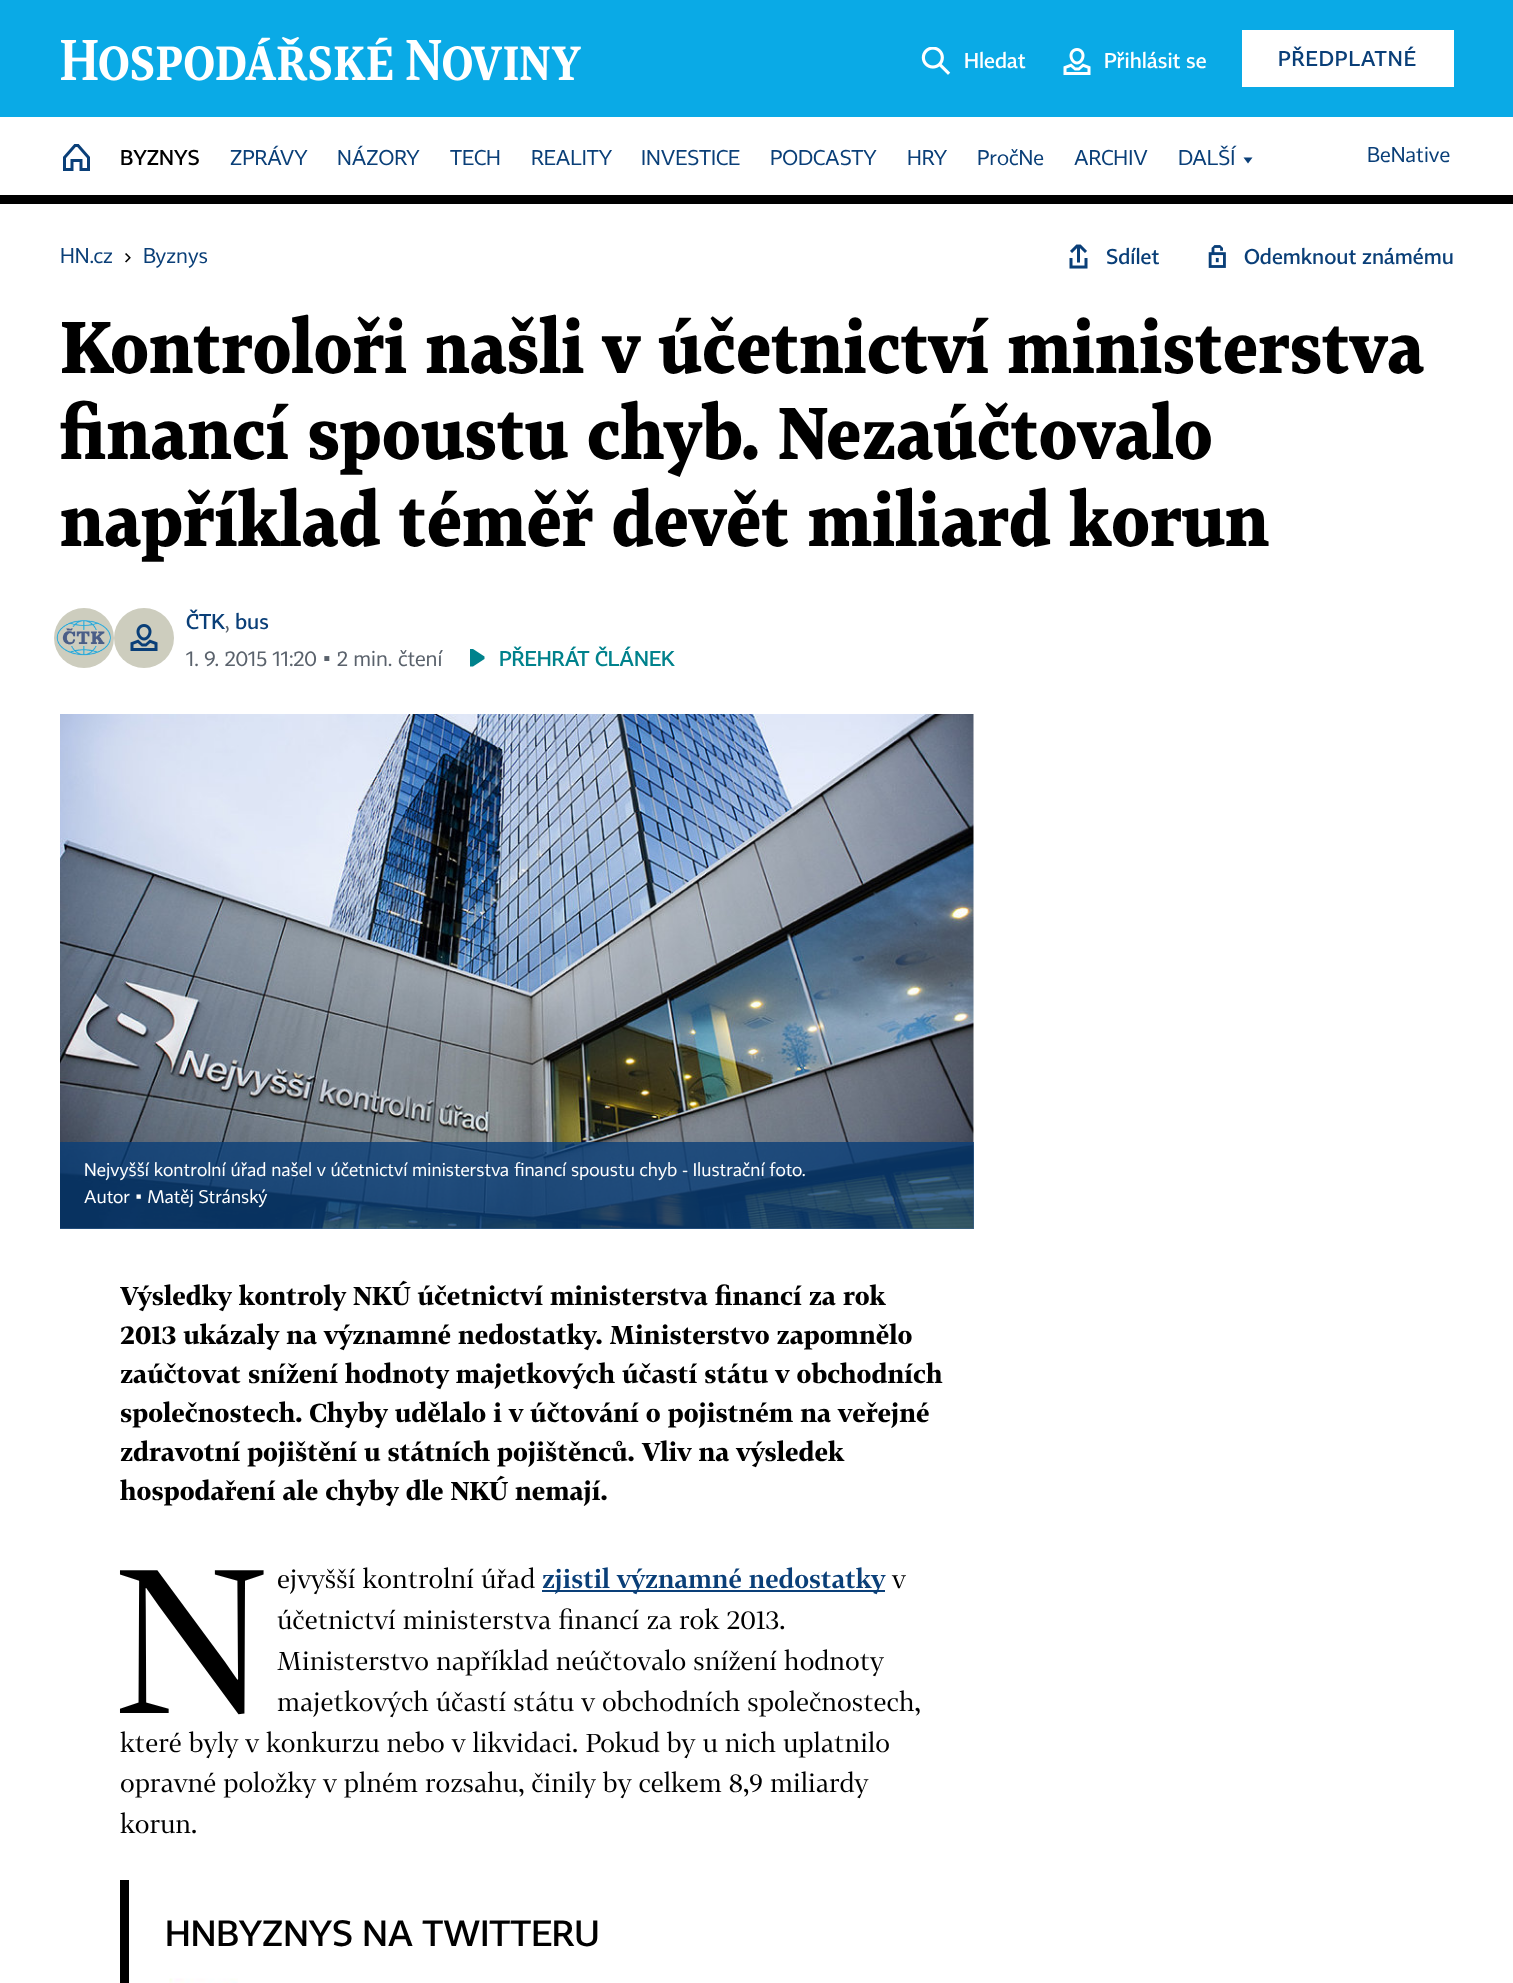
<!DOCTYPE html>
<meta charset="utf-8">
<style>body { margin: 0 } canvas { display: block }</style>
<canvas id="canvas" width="1513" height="1983"></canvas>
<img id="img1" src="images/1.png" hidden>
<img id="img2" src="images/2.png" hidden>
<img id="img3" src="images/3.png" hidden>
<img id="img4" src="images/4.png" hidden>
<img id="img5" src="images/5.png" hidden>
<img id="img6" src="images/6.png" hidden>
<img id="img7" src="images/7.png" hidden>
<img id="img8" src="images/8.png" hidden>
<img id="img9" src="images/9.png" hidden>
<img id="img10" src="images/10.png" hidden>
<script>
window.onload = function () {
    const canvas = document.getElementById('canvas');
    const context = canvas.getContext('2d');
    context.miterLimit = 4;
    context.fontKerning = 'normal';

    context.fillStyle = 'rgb(255, 255, 255)';
    context.fillRect(0, 0, 1513, 1983);
    context.fillStyle = 'rgb(10, 170, 230)';
    context.fillRect(0, 0, 1513, 117);
    context.drawImage(document.getElementById('img1'), 61, 37, 520, 44);
    context.drawImage(document.getElementById('img2'), 921, 47, 30, 28);
    context.drawImage(document.getElementById('img3'), 1063, 48, 28, 27);
    context.fillStyle = 'rgb(255, 255, 255)';
    context.fillRect(1242, 30, 212, 57);
    context.drawImage(document.getElementById('img4'), 63, 144, 27, 27);
    context.fillStyle = 'rgb(10, 63, 120)';
    context.beginPath();
    context.moveTo(1243.5, 157.5);
    context.lineTo(1252.5, 157.5);
    context.lineTo(1248, 163.5);
    context.closePath();
    context.fill();
    context.fillStyle = 'rgb(0, 0, 0)';
    context.fillRect(0, 195, 1513, 9);
    context.drawImage(document.getElementById('img5'), 1069, 244, 19, 25);
    context.drawImage(document.getElementById('img6'), 1208, 245, 18, 23);
    context.fillStyle = 'rgb(205, 205, 190)';
    context.beginPath();
    context.arc(84, 638, 30, 0, 2 * Math.PI);
    context.fill();
    context.drawImage(document.getElementById('img7'), 56, 620, 55, 36);
    context.beginPath();
    context.arc(144, 638, 30, 0, 2 * Math.PI);
    context.fill();
    context.drawImage(document.getElementById('img8'), 130, 624, 28, 27);
    context.save();
    context.beginPath();
    context.rect(470, 648, 15, 20);
    context.clip();
    context.fillStyle = 'rgb(0, 130, 140)';
    context.beginPath();
    context.moveTo(484.5, 656.5);
    context.lineTo(484.5, 659);
    context.lineTo(473, 666.5);
    context.lineTo(469.5, 666.5);
    context.lineTo(469.5, 649);
    context.lineTo(473, 649);
    context.closePath();
    context.fill('evenodd');
    context.restore();
    context.drawImage(document.getElementById('img9'), 60, 714, 914, 515);
    context.fillStyle = 'rgba(10, 63, 120, 0.8)';
    context.fillRect(60, 1142, 914, 87);
    context.fillStyle = 'rgb(10, 63, 120)';
    context.fillRect(542, 1590, 343, 2);
    context.fillStyle = 'rgb(0, 0, 0)';
    context.fillRect(120, 1880, 9, 103);
    context.drawImage(document.getElementById('img10'), 169, 1978, 69, 5);
    context.font = '500 21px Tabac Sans';
    context.fillStyle = 'rgb(255, 255, 255)';
    context.fillText('Hledat', 964, 68);
    context.fillText('Přihlásit se', 1104, 68);
    context.letterSpacing = '1px';
    context.fillStyle = 'rgb(10, 63, 120)';
    context.fillText('PŘEDPLATNÉ', 1278, 66);
    context.letterSpacing = '0px';
    context.fillStyle = 'rgb(0, 0, 0)';
    context.fillText('BYZNYS', 120, 165);
    context.font = '21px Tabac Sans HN';
    context.fillStyle = 'rgb(10, 63, 120)';
    context.fillText('ZPRÁVY', 230, 165);
    context.fillText('NÁZORY', 337, 165);
    context.fillText('TECH', 450, 165);
    context.fillText('REALITY', 531, 165);
    context.fillText('INVESTICE', 641, 165);
    context.fillText('PODCASTY', 770, 165);
    context.fillText('HRY', 907, 165);
    context.fillText('PročNe', 977, 165);
    context.fillText('ARCHIV', 1074, 165);
    context.fillText('DALŠÍ', 1178, 165);
    context.fillText('BeNative', 1367, 162);
    context.fillText('HN.cz', 60, 263);
    context.fillStyle = 'rgb(0, 0, 0)';
    context.fillText('›', 124, 263);
    context.fillStyle = 'rgb(10, 63, 120)';
    context.fillText('Byznys', 143, 263);
    context.font = '500 21px Tabac Sans';
    context.fillText('Sdílet', 1106, 264);
    context.fillText('Odemknout známému', 1244, 264);
    context.font = 'bold 72px "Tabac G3"';
    context.fillStyle = 'rgb(0, 0, 0)';
    context.fillText('Kontroloři našli v účetnictví ministerstva', 60, 373);
    context.fillText('financí spoustu chyb. Nezaúčtovalo', 60, 459);
    context.fillText('například téměř devět miliard korun', 60, 546);
    context.font = '500 21px Tabac Sans';
    context.fillStyle = 'rgb(10, 63, 120)';
    context.fillText('ČTK', 186, 629);
    context.font = '21px Tabac Sans HN';
    context.fillStyle = 'rgb(90, 98, 108)';
    context.fillText(',', 225, 629);
    context.font = '500 21px Tabac Sans';
    context.fillStyle = 'rgb(10, 63, 120)';
    context.fillText('bus', 235, 629);
    context.font = '21px Tabac Sans HN';
    context.fillStyle = 'rgb(90, 98, 108)';
    context.fillText('1. 9. 2015 11:20 ▪ 2 min. čtení', 186, 666);
    context.font = '500 21px Tabac Sans';
    context.fillStyle = 'rgb(0, 130, 140)';
    context.fillText('PŘEHRÁT ČLÁNEK', 499, 666);
    context.font = '18px Tabac Sans HN';
    context.fillStyle = 'rgb(255, 255, 255)';
    context.fillText('Nejvyšší kontrolní úřad našel v účetnictví ministerstva financí spoustu chyb - Ilustrační foto.', 84, 1176);
    context.fillText('Autor ▪ Matěj Stránský', 84, 1203);
    context.font = 'bold 25.5px "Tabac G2"';
    context.fillStyle = 'rgb(0, 0, 0)';
    context.fillText('Výsledky kontroly NKÚ účetnictví ministerstva financí za rok', 120, 1305);
    context.fillText('2013 ukázaly na významné nedostatky. Ministerstvo zapomnělo', 120, 1344);
    context.fillText('zaúčtovat snížení hodnoty majetkových účastí státu v obchodních', 120, 1383);
    context.fillText('společnostech. Chyby udělalo i v účtování o pojistném na veřejné', 120, 1422);
    context.fillText('zdravotní pojištění u státních pojištěnců. Vliv na výsledek', 120, 1461);
    context.fillText('hospodaření ale chyby dle NKÚ nemají.', 120, 1500);
    context.font = '201px "Tabac G2"';
    context.fillText('N', 114, 1713);
    context.font = '25.5px "Tabac G2"';
    context.fillText('ejvyšší kontrolní úřad', 277, 1588);
    context.font = '600 25.5px "Tabac G2"';
    context.fillStyle = 'rgb(10, 63, 120)';
    context.fillText('zjistil významné nedostatky', 542, 1588);
    context.font = '25.5px "Tabac G2"';
    context.fillStyle = 'rgb(0, 0, 0)';
    context.fillText('v', 892, 1588);
    context.fillText('účetnictví ministerstva financí za rok 2013.', 277, 1629);
    context.fillText('Ministerstvo například neúčtovalo snížení hodnoty', 277, 1670);
    context.fillText('majetkových účastí státu v obchodních společnostech,', 277, 1711);
    context.fillText('které byly v konkurzu nebo v likvidaci. Pokud by u nich uplatnilo', 120, 1752);
    context.fillText('opravné položky v plném rozsahu, činily by celkem 8,9 miliardy', 120, 1792);
    context.fillText('korun.', 120, 1833);
    context.font = '500 36px Tabac Sans';
    context.fillText('HNBYZNYS NA TWITTERU', 165, 1946);
};
</script>
